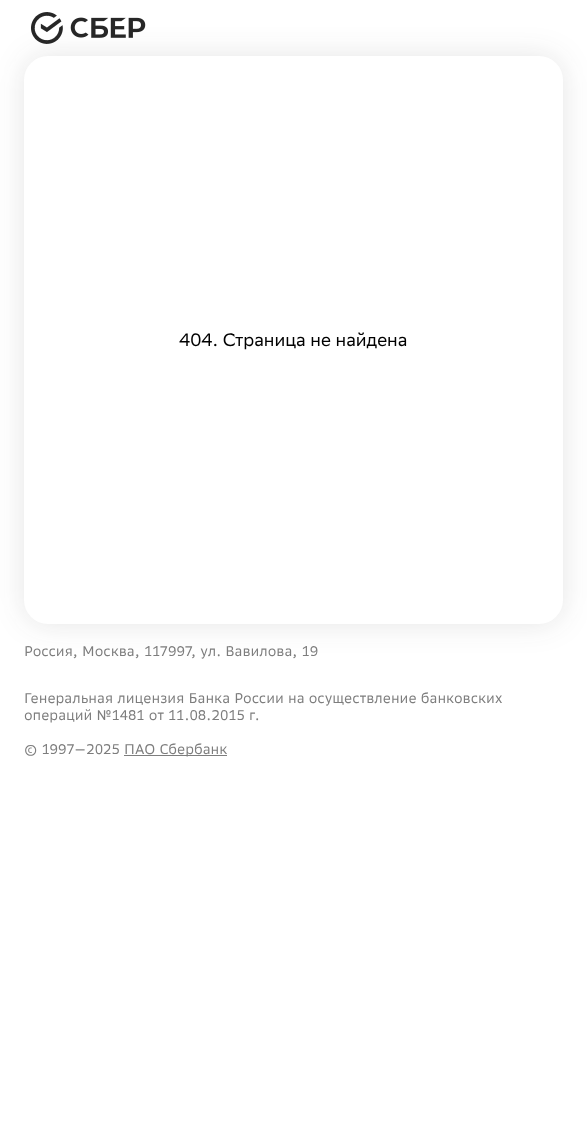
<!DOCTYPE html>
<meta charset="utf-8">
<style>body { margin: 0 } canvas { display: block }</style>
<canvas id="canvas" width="587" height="1128"></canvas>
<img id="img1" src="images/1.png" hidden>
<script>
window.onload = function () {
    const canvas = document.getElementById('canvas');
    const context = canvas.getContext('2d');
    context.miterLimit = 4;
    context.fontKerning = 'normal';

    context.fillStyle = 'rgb(255, 255, 255)';
    context.fillRect(0, 0, 587, 1128);
    context.drawImage(document.getElementById('img1'), 31, 12, 115, 32);
    context.fillStyle = 'rgba(38, 38, 38, 0.12)';
    context.filter = 'blur(15px)';
    context.beginPath();
    context.roundRect(24, 56, 539, 568, 24);
    context.fill();
    context.filter = 'none';
    context.fillStyle = 'rgb(255, 255, 255)';
    context.beginPath();
    context.roundRect(24, 56, 539, 568, 24);
    context.fill();
    context.fillStyle = 'rgb(125, 125, 125)';
    context.fillRect(124, 755, 103, 1);
    context.font = '18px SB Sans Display';
    context.fillStyle = 'rgb(0, 0, 0)';
    context.fillText('404. Страница не найдена', 179, 346);
    context.font = '14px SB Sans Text';
    context.fillStyle = 'rgb(125, 125, 125)';
    context.fillText('Россия, Москва, 117997, ул. Вавилова, 19', 24, 656);
    context.fillText('Генеральная лицензия Банка России на осуществление банковских', 24, 703);
    context.fillText('операций №1481 от 11.08.2015 г.', 24, 720);
    context.fillText('© 1997—2025', 24, 754);
    context.fillText('ПАО Сбербанк', 124, 754);
};
</script>
